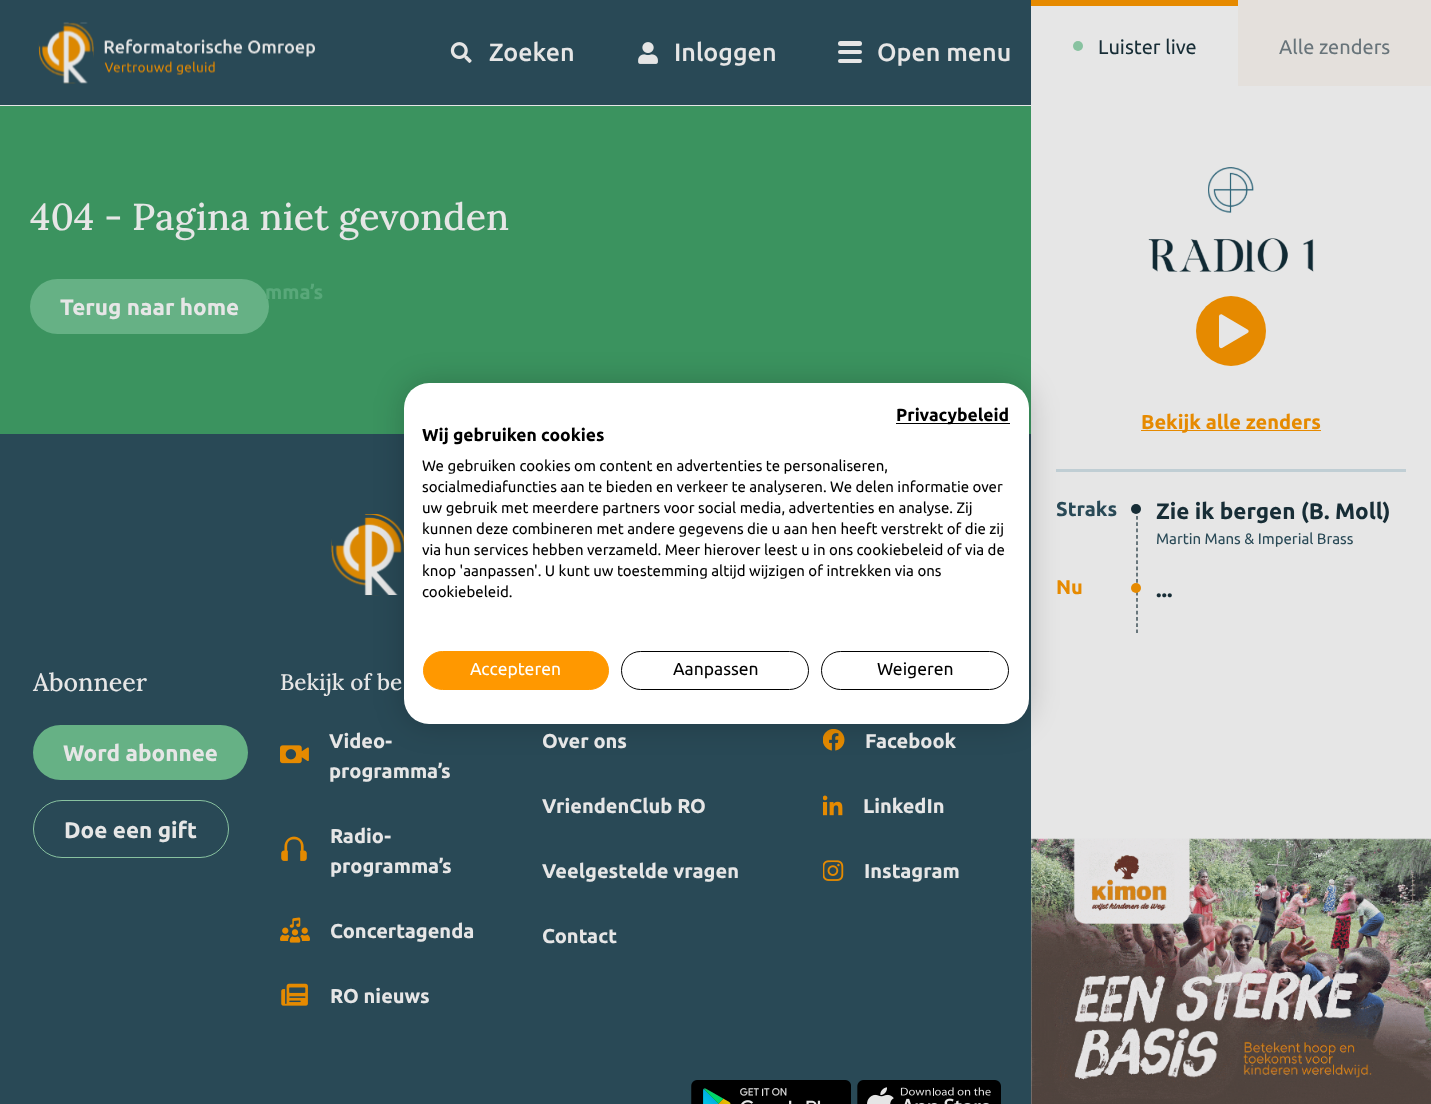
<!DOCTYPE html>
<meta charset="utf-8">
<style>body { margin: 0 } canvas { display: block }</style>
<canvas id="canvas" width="1431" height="1104"></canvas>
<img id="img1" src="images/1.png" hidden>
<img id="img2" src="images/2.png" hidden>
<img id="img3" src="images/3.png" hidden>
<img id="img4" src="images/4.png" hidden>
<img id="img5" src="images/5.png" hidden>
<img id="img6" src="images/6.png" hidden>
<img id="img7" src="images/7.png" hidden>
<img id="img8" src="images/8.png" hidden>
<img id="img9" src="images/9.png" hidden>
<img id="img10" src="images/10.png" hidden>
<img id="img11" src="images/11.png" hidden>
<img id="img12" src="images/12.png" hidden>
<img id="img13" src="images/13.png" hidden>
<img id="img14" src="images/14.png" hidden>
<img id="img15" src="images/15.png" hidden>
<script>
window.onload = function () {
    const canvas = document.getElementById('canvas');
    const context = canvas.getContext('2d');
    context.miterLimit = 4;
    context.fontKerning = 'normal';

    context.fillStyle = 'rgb(59, 147, 95)';
    context.fillRect(0, 0, 1431, 1104);
    context.fillStyle = 'rgb(41, 73, 86)';
    context.fillRect(0, 0, 1031, 105);
    context.fillStyle = 'rgb(230, 230, 230)';
    context.fillRect(0, 105, 1031, 1);
    context.drawImage(document.getElementById('img1'), 38, 22, 277, 62);
    context.drawImage(document.getElementById('img2'), 450, 42, 22, 21);
    context.drawImage(document.getElementById('img3'), 638, 42, 20, 22);
    context.beginPath();
    context.roundRect(838, 41, 24, 5, 2.5);
    context.fill();
    context.beginPath();
    context.roundRect(838, 50, 24, 4, 2);
    context.fill();
    context.beginPath();
    context.roundRect(838, 59, 24, 4, 2);
    context.fill();
    context.fillStyle = 'rgb(102, 177, 133)';
    context.beginPath();
    context.roundRect(30, 279, 239, 55, 27.5);
    context.fill();
    context.fillStyle = 'rgb(41, 73, 86)';
    context.fillRect(0, 434, 1031, 670);
    context.drawImage(document.getElementById('img4'), 331, 514, 73, 82);
    context.fillStyle = 'rgb(102, 177, 133)';
    context.beginPath();
    context.roundRect(33, 725, 215, 55, 27.5);
    context.fill();
    context.beginPath();
    context.roundRect(33.5, 800.5, 195, 57, 28.5);
    context.strokeStyle = 'rgb(136, 194, 160)';
    context.stroke();
    context.drawImage(document.getElementById('img5'), 280, 745, 29, 19);
    context.drawImage(document.getElementById('img6'), 281, 836, 26, 25);
    context.drawImage(document.getElementById('img7'), 280, 917, 30, 26);
    context.drawImage(document.getElementById('img8'), 281, 983, 27, 23);
    context.drawImage(document.getElementById('img9'), 823, 729, 22, 22);
    context.drawImage(document.getElementById('img10'), 823, 795, 20, 21);
    context.drawImage(document.getElementById('img11'), 823, 860, 21, 21);
    context.drawImage(document.getElementById('img12'), 691, 1080, 160, 24);
    context.drawImage(document.getElementById('img13'), 857, 1080, 144, 24);
    context.fillStyle = 'rgb(230, 230, 230)';
    context.fillRect(1031, 6, 400, 1098);
    context.fillStyle = 'rgb(230, 138, 0)';
    context.fillRect(1031, 0, 207, 6);
    context.fillStyle = 'rgb(136, 194, 160)';
    context.beginPath();
    context.arc(1078, 46, 5, 0, 2 * Math.PI);
    context.fill();
    context.fillStyle = 'rgb(228, 224, 220)';
    context.fillRect(1238, 0, 193, 86);
    context.drawImage(document.getElementById('img14'), 1148, 167, 166, 105);
    context.fillStyle = 'rgb(230, 138, 0)';
    context.beginPath();
    context.arc(1231, 331, 35, 0, 2 * Math.PI);
    context.fill();
    context.fillStyle = 'rgb(230, 230, 230)';
    context.beginPath();
    context.moveTo(1247.5, 329.5);
    context.bezierCurveTo(1249, 330.5, 1249, 332, 1247.5, 333);
    context.lineTo(1222, 348);
    context.bezierCurveTo(1220.5, 348.5, 1219, 347.5, 1219, 346);
    context.lineTo(1219, 316.5);
    context.bezierCurveTo(1219, 315, 1220.5, 314, 1222, 314.5);
    context.closePath();
    context.fill();
    context.fillStyle = 'rgb(230, 138, 0)';
    context.fillRect(1141, 430, 180, 1);
    context.fillStyle = 'rgb(192, 206, 212)';
    context.fillRect(1056, 469, 350, 3);
    context.fillStyle = 'rgb(23, 45, 54)';
    context.beginPath();
    context.arc(1136, 509, 5, 0, 2 * Math.PI);
    context.fill();
    context.save();
    context.beginPath();
    context.rect(1056, 496, 350, 137);
    context.clip();
    context.beginPath();
    context.moveTo(1137, 516);
    context.lineTo(1137, 652.5);
    context.strokeStyle = 'rgb(23, 45, 54)';
    context.lineWidth = 1.2;
    context.setLineDash([3.75, 2.56]);
    context.stroke();
    context.restore();
    context.fillStyle = 'rgb(230, 138, 0)';
    context.beginPath();
    context.arc(1136, 588, 5, 0, 2 * Math.PI);
    context.fill();
    context.drawImage(document.getElementById('img15'), 1031, 838, 400, 266);
    context.fillStyle = 'rgba(0, 0, 0, 0.2)';
    context.filter = 'blur(15px)';
    context.beginPath();
    context.roundRect(404, 383, 625, 341, 25);
    context.fill();
    context.filter = 'none';
    context.fillStyle = 'rgb(255, 255, 255)';
    context.beginPath();
    context.roundRect(404, 383, 625, 341, 25);
    context.fill();
    context.fillStyle = 'rgb(0, 0, 0)';
    context.fillRect(896, 423, 114, 1);
    context.fillStyle = 'rgb(255, 152, 0)';
    context.beginPath();
    context.roundRect(423.5, 651.5, 185, 38, 19);
    context.fill();
    context.strokeStyle = 'rgb(255, 152, 0)';
    context.stroke();
    context.beginPath();
    context.roundRect(621.5, 651.5, 187, 38, 19);
    context.strokeStyle = 'rgb(0, 0, 0)';
    context.stroke();
    context.beginPath();
    context.roundRect(821.5, 651.5, 187, 38, 19);
    context.stroke();
    context.font = '500 25px Ubuntu';
    context.fillStyle = 'rgb(230, 230, 230)';
    context.fillText('Zoeken', 489, 61);
    context.fillText('Inloggen', 674, 61);
    context.fillText('Open menu', 877, 61);
    context.font = 'bold 20px Ubuntu';
    context.fillStyle = 'rgb(89, 168, 122)';
    context.fillText('mma’s', 265, 299);
    context.font = '500 37.5px Lora';
    context.fillStyle = 'rgb(230, 230, 230)';
    context.fillText('404 - Pagina niet gevonden', 30, 230);
    context.font = 'bold 22.5px Ubuntu';
    context.fillText('Terug naar home', 60, 315);
    context.font = '500 25px Lora';
    context.fillText('Abonneer', 33, 691);
    context.font = 'bold 22.5px Ubuntu';
    context.fillText('Word abonnee', 63, 761);
    context.fillText('Doe een gift', 64, 838);
    context.font = '500 22.5px Lora';
    context.fillText('Bekijk of be', 280, 690);
    context.font = 'bold 20px Ubuntu';
    context.fillText('Video-', 329, 748);
    context.fillText('programma’s', 329, 778);
    context.fillText('Radio-', 330, 843);
    context.fillText('programma’s', 330, 873);
    context.fillText('Concertagenda', 330, 938);
    context.fillText('RO nieuws', 330, 1003);
    context.fillText('Over ons', 542, 748);
    context.fillText('VriendenClub RO', 542, 813);
    context.fillText('Veelgestelde vragen', 542, 878);
    context.fillText('Contact', 542, 943);
    context.fillText('Facebook', 865, 748);
    context.fillText('LinkedIn', 863, 813);
    context.fillText('Instagram', 864, 878);
    context.font = '20px Ubuntu';
    context.fillStyle = 'rgb(23, 45, 54)';
    context.fillText('Luister live', 1098, 54);
    context.fillStyle = 'rgb(104, 116, 122)';
    context.fillText('Alle zenders', 1279, 54);
    context.font = 'bold 20px Ubuntu';
    context.fillStyle = 'rgb(230, 138, 0)';
    context.fillText('Bekijk alle zenders', 1141, 429);
    context.fillStyle = 'rgb(41, 73, 86)';
    context.fillText('Straks', 1056, 516);
    context.font = 'bold 22.5px Ubuntu';
    context.fillStyle = 'rgb(23, 45, 54)';
    context.fillText('Zie ik bergen (B. Moll)', 1156, 519);
    context.font = '15px Ubuntu';
    context.fillStyle = 'rgb(41, 73, 86)';
    context.fillText('Martin Mans & Imperial Brass', 1156, 544);
    context.font = 'bold 20px Ubuntu';
    context.fillStyle = 'rgb(230, 138, 0)';
    context.fillText('Nu', 1056, 594);
    context.font = 'bold 22.5px Ubuntu';
    context.fillStyle = 'rgb(23, 45, 54)';
    context.fillText('...', 1156, 597);
    context.font = 'bold 17.5px Ubuntu';
    context.fillStyle = 'rgb(0, 0, 0)';
    context.fillText('Privacybeleid', 896, 421);
    context.fillText('Wij gebruiken cookies', 422, 441);
    context.font = '15px Ubuntu';
    context.fillText('We gebruiken cookies om content en advertenties te personaliseren,', 422, 471);
    context.fillText('socialmediafuncties aan te bieden en verkeer te analyseren. We delen informatie over', 422, 492);
    context.fillText('uw gebruik met meerdere partners voor social media, advertenties en analyse. Zij', 422, 513);
    context.fillText('kunnen deze combineren met andere gegevens die u aan hen heeft verstrekt of die zij', 422, 534);
    context.fillText('via hun services hebben verzameld. Meer hierover leest u in ons cookiebeleid of via de', 422, 555);
    context.fillText('knop \'aanpassen\'. U kunt uw toestemming altijd wijzigen of intrekken via ons', 422, 576);
    context.fillText('cookiebeleid.', 422, 597);
    context.font = '17.5px Ubuntu';
    context.fillStyle = 'rgb(255, 255, 255)';
    context.fillText('Accepteren', 470, 675);
    context.fillStyle = 'rgb(0, 0, 0)';
    context.fillText('Aanpassen', 673, 675);
    context.fillText('Weigeren', 877, 675);
};
</script>
